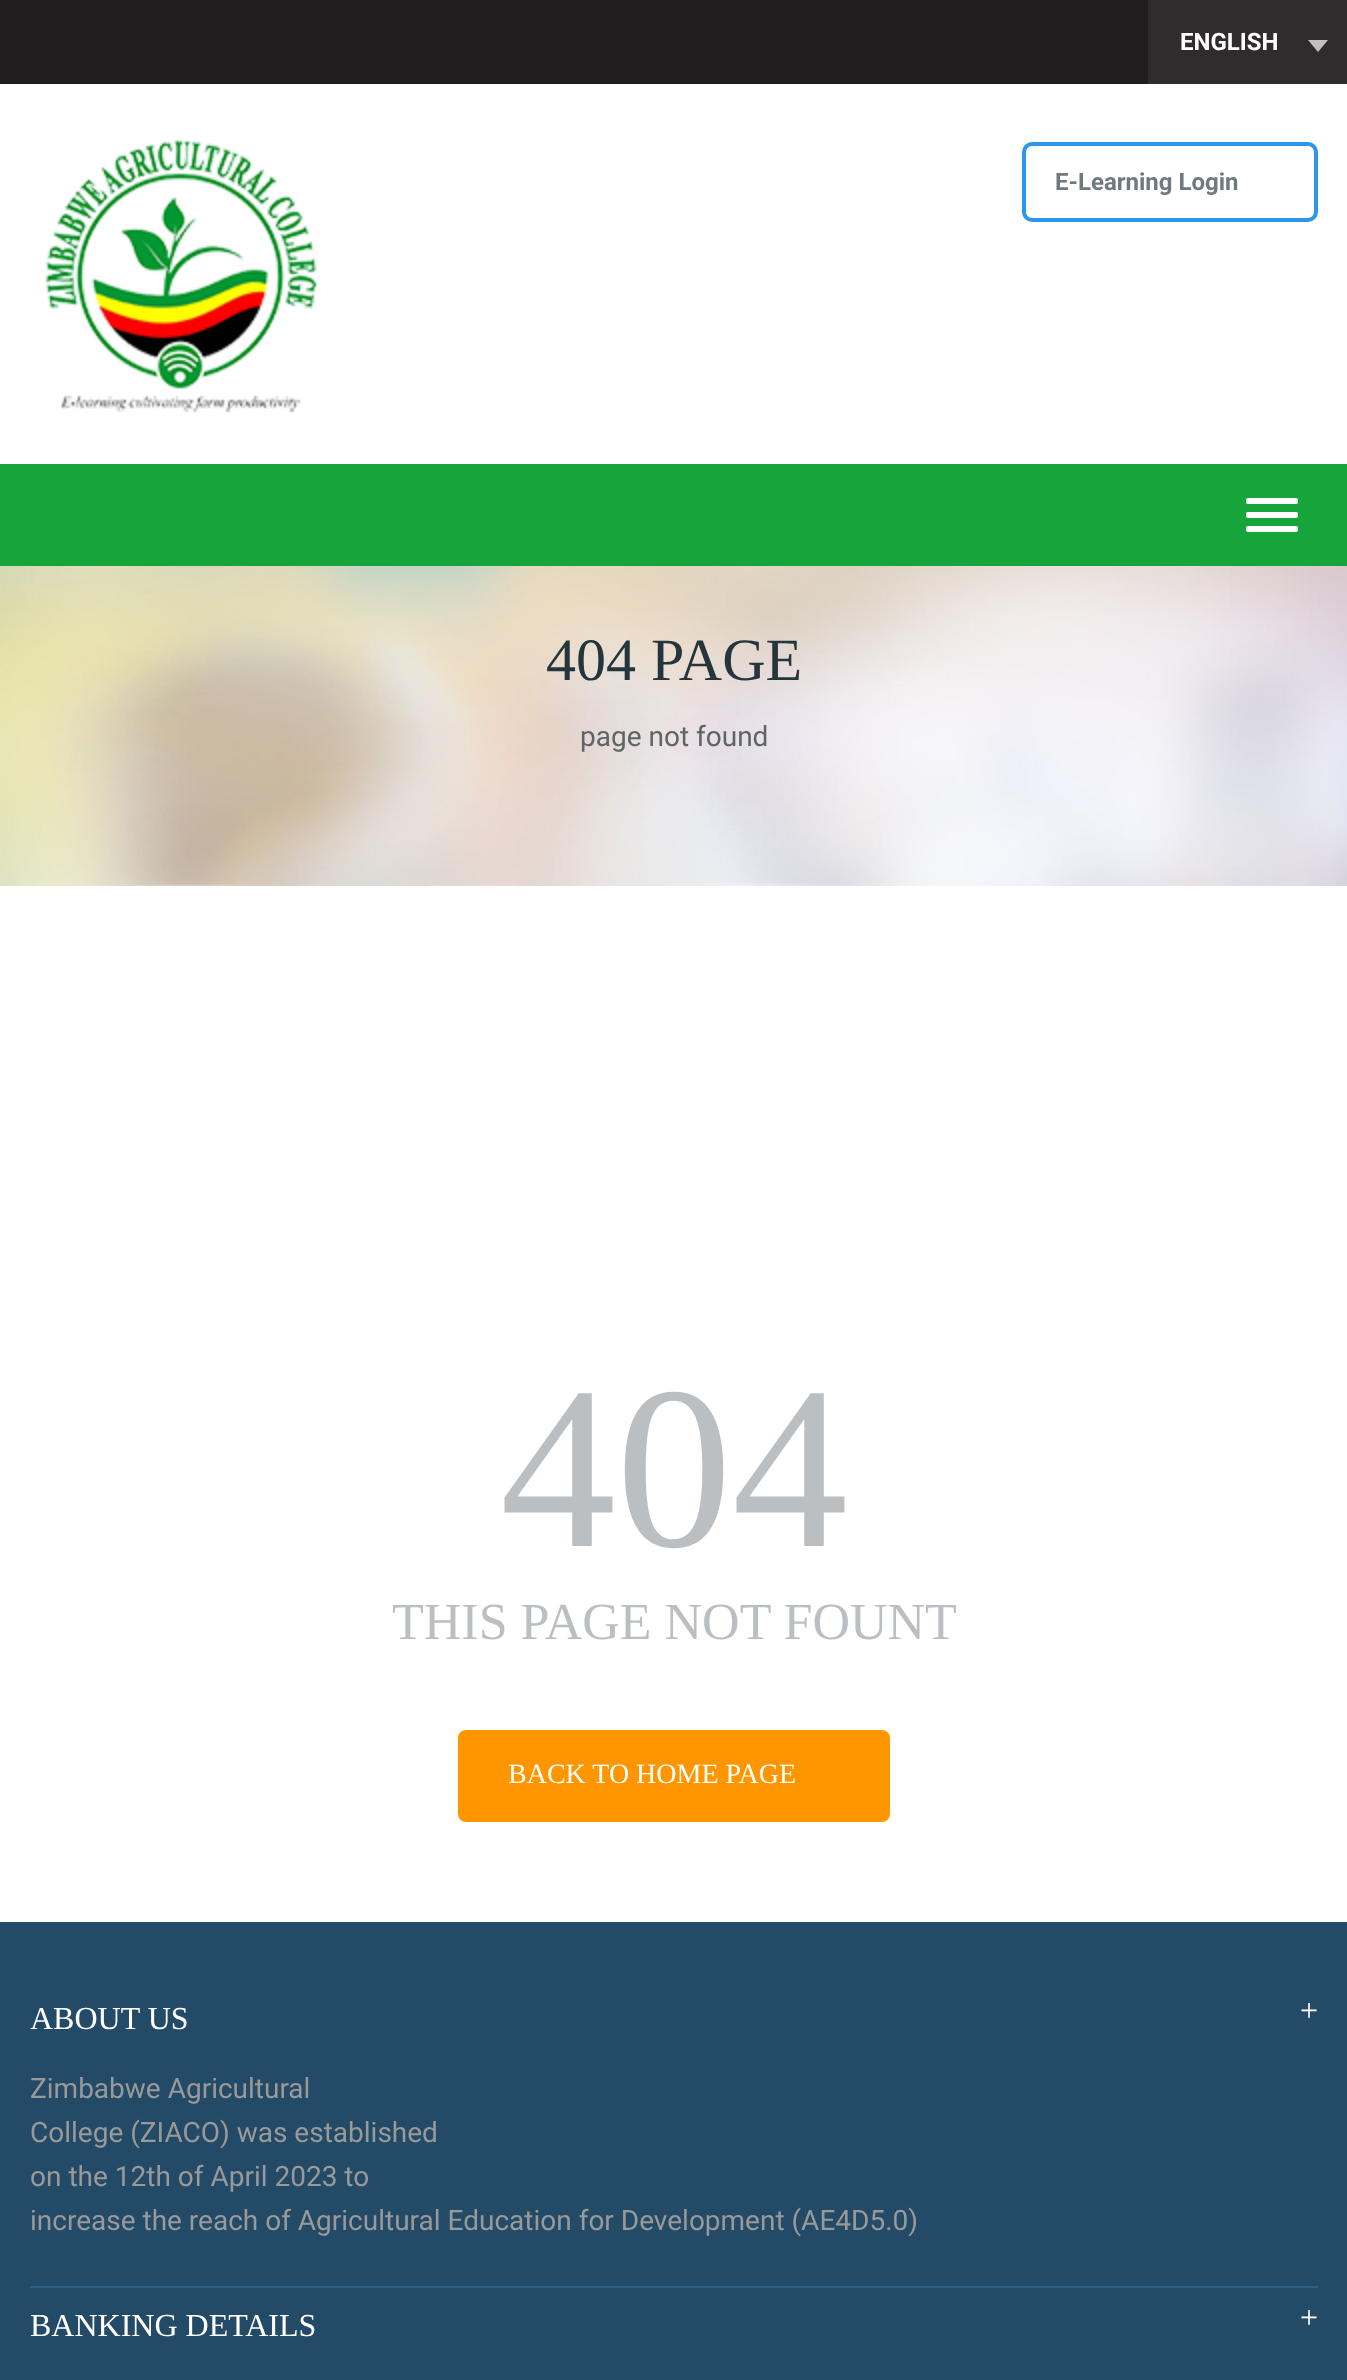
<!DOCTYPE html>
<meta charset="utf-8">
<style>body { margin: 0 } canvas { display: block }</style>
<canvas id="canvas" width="1347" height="2380"></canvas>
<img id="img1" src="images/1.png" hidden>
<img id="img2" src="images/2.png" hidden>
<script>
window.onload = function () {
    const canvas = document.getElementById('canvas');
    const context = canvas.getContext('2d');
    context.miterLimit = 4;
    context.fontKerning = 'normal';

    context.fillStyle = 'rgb(255, 255, 255)';
    context.fillRect(0, 0, 1347, 2380);
    context.fillStyle = 'rgb(33, 29, 30)';
    context.fillRect(0, 0, 1148, 84);
    context.fillStyle = 'rgb(48, 44, 45)';
    context.fillRect(1148, 0, 199, 84);
    context.fillStyle = 'rgb(193, 192, 192)';
    context.beginPath();
    context.moveTo(1308, 40);
    context.lineTo(1328, 40);
    context.lineTo(1318, 52);
    context.closePath();
    context.fill();
    context.drawImage(document.getElementById('img1'), 45, 139, 272, 274);
    context.beginPath();
    context.roundRect(1024, 144, 292, 76, 8);
    context.strokeStyle = 'rgb(44, 151, 234)';
    context.lineWidth = 4;
    context.stroke();
    context.fillStyle = 'rgb(23, 164, 59)';
    context.fillRect(0, 464, 1347, 102);
    context.fillStyle = 'rgb(255, 255, 255)';
    context.beginPath();
    context.roundRect(1246, 498, 52, 6, 2);
    context.fill();
    context.beginPath();
    context.roundRect(1246, 512, 52, 6, 2);
    context.fill();
    context.beginPath();
    context.roundRect(1246, 526, 52, 6, 2);
    context.fill();
    context.drawImage(document.getElementById('img2'), 0, 566, 1347, 320);
    context.fillStyle = 'rgb(255, 150, 0)';
    context.beginPath();
    context.roundRect(458, 1730, 432, 92, 8);
    context.fill();
    context.fillStyle = 'rgb(35, 74, 102)';
    context.fillRect(0, 1922, 1347, 458);
    context.fillStyle = 'rgb(46, 95, 133)';
    context.fillRect(30, 2286, 1288, 2);
    context.font = 'bold 24px Roboto';
    context.fillStyle = 'rgb(255, 255, 255)';
    context.fillText('ENGLISH', 1180, 50);
    context.fillStyle = 'rgb(111, 122, 127)';
    context.fillText('E-Learning Login', 1055, 190);
    context.font = '60px Liberation Serif';
    context.fillStyle = 'rgb(36, 53, 59)';
    context.fillText('404 PAGE', 546, 680);
    context.font = '28px Roboto';
    context.fillStyle = 'rgb(95, 100, 101)';
    context.fillText('page not found', 580, 746);
    context.font = '232px Liberation Serif';
    context.fillStyle = 'rgb(188, 191, 193)';
    context.fillText('404', 500, 1546);
    context.font = '52px Liberation Serif';
    context.fillText('THIS PAGE NOT FOUNT', 392, 1639);
    context.font = '28px Liberation Serif';
    context.fillStyle = 'rgb(255, 255, 255)';
    context.fillText('BACK TO HOME PAGE', 508, 1783);
    context.font = '32px Liberation Serif';
    context.fillText('ABOUT US', 30, 2029);
    context.fillText('+', 1300, 2021);
    context.font = '28px Roboto';
    context.fillStyle = 'rgb(153, 153, 153)';
    context.fillText('Zimbabwe Agricultural', 30, 2098);
    context.fillText('College (ZIACO) was established', 30, 2142);
    context.fillText('on the 12th of April 2023 to', 30, 2186);
    context.fillText('increase the reach of Agricultural Education for Development (AE4D5.0)', 30, 2230);
    context.font = '32px Liberation Serif';
    context.fillStyle = 'rgb(255, 255, 255)';
    context.fillText('BANKING DETAILS', 30, 2336);
    context.fillText('+', 1300, 2328);
};
</script>
